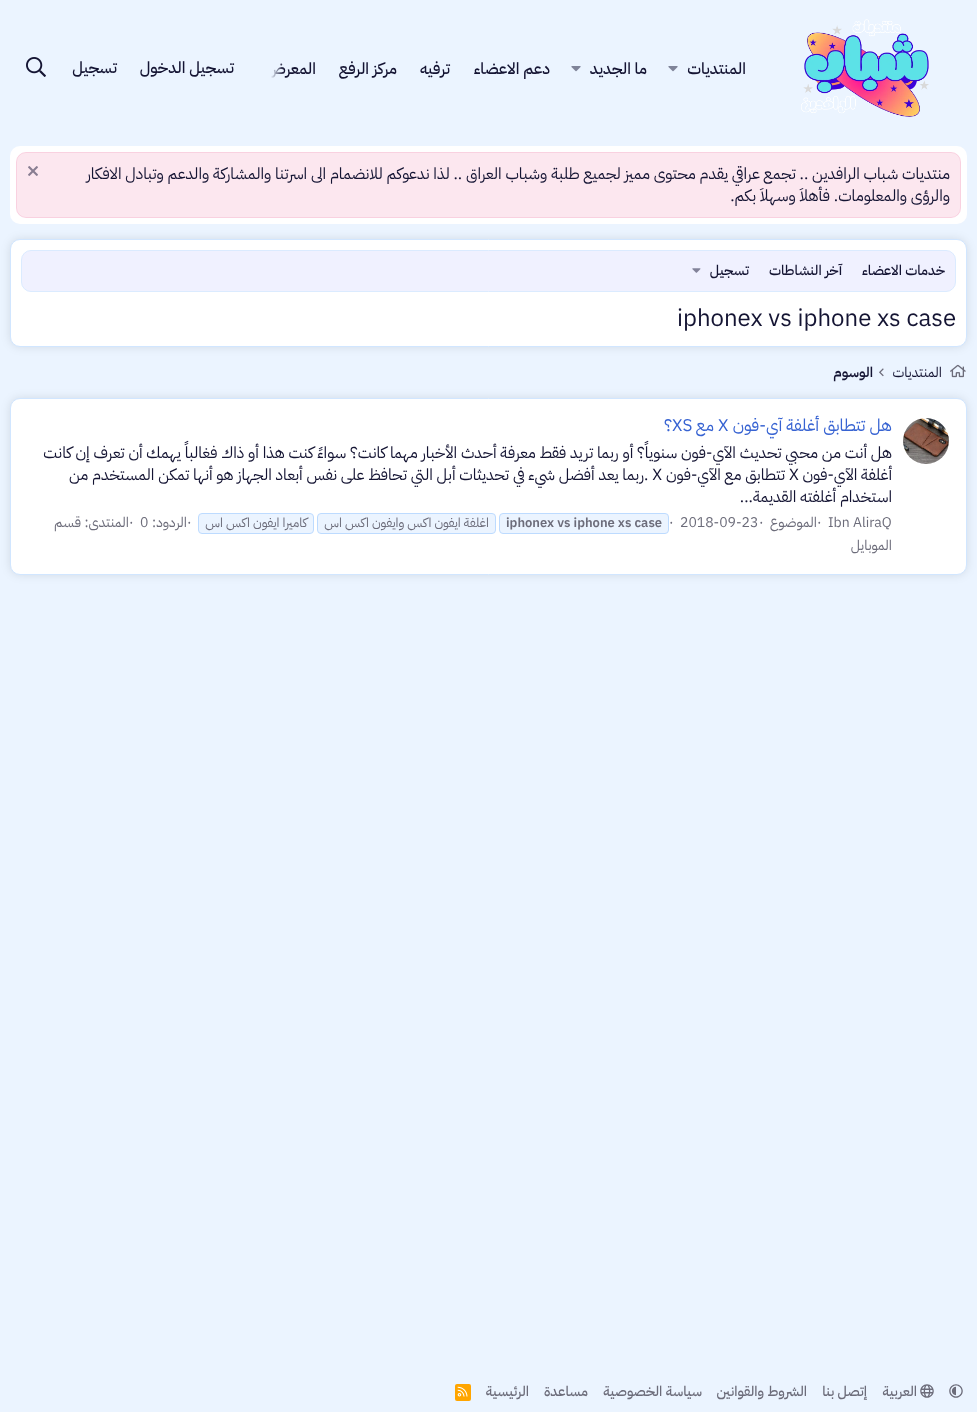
<!DOCTYPE html>
<meta charset="utf-8">
<style>body { margin: 0 } canvas { display: block }</style>
<canvas id="canvas" width="977" height="1412"></canvas>
<img id="img1" src="images/1.png" hidden>
<img id="img2" src="images/2.png" hidden>
<img id="img3" src="images/3.png" hidden>
<img id="img4" src="images/4.png" hidden>
<img id="img5" src="images/5.png" hidden>
<img id="img6" src="images/6.png" hidden>
<img id="img7" src="images/7.png" hidden>
<img id="img8" src="images/8.png" hidden>
<img id="img9" src="images/9.png" hidden>
<img id="img10" src="images/10.png" hidden>
<img id="img11" src="images/11.png" hidden>
<script>
window.onload = function () {
    const canvas = document.getElementById('canvas');
    const context = canvas.getContext('2d');
    context.miterLimit = 4;
    context.fontKerning = 'normal';
    let gradient;

    context.fillStyle = 'rgb(235, 244, 255)';
    context.fillRect(0, 0, 977, 1412);
    context.drawImage(document.getElementById('img1'), 801, 19, 128, 98);
    context.drawImage(document.getElementById('img2'), 668, 66, 10, 6);
    context.drawImage(document.getElementById('img2'), 571, 66, 10, 6);
    context.drawImage(document.getElementById('img3'), 26, 57, 20, 20);
    context.fillStyle = 'rgb(255, 255, 255)';
    context.beginPath();
    context.roundRect(10, 146, 957, 78, 10);
    context.fill();
    context.fillStyle = 'rgb(252, 231, 239)';
    context.beginPath();
    context.roundRect(16, 152, 945, 66, 10);
    context.fill();
    context.beginPath();
    context.roundRect(16.5, 152.5, 944, 65, 9.5);
    context.strokeStyle = 'rgba(222, 18, 99, 0.1)';
    context.stroke();
    context.drawImage(document.getElementById('img4'), 28, 166, 10, 10);
    context.fillStyle = 'rgba(0, 0, 0, 0.1)';
    context.filter = 'blur(5px)';
    context.beginPath();
    context.roundRect(10, 239, 957, 108, 10);
    context.fill();
    context.filter = 'none';
    context.fillStyle = 'rgb(255, 255, 255)';
    context.beginPath();
    context.roundRect(10.5, 239.5, 956, 107, 9.5);
    context.fill();
    context.strokeStyle = 'rgb(209, 230, 255)';
    context.stroke();
    context.fillStyle = 'rgb(240, 241, 255)';
    context.beginPath();
    context.roundRect(21.5, 250.5, 934, 41, 9.5);
    context.fill();
    context.strokeStyle = 'rgb(219, 235, 255)';
    context.stroke();
    context.drawImage(document.getElementById('img5'), 692, 268, 9, 5);
    context.drawImage(document.getElementById('img6'), 950, 364, 16, 14);
    context.drawImage(document.getElementById('img7'), 879, 368, 5, 9);
    context.fillStyle = 'rgba(0, 0, 0, 0.1)';
    context.filter = 'blur(5px)';
    context.beginPath();
    context.roundRect(10, 398, 957, 177, 10);
    context.fill();
    context.filter = 'none';
    context.fillStyle = 'rgb(255, 255, 255)';
    context.beginPath();
    context.roundRect(10.5, 398.5, 956, 176, 9.5);
    context.fill();
    context.strokeStyle = 'rgb(209, 230, 255)';
    context.stroke();
    context.drawImage(document.getElementById('img8'), 903, 418, 46, 46);
    context.fillStyle = 'rgb(235, 244, 255)';
    context.beginPath();
    context.roundRect(499.5, 513.5, 169, 20, 3.5);
    context.fill();
    context.strokeStyle = 'rgb(189, 219, 255)';
    context.stroke();
    context.beginPath();
    context.roundRect(317.5, 513.5, 178, 20, 3.5);
    context.fill();
    context.stroke();
    context.beginPath();
    context.roundRect(198.5, 513.5, 115, 20, 3.5);
    context.fill();
    context.stroke();
    context.drawImage(document.getElementById('img9'), 949, 1384, 14, 14);
    context.drawImage(document.getElementById('img10'), 920, 1384, 14, 14);
    context.fillStyle = 'rgb(255, 165, 0)';
    context.beginPath();
    context.roundRect(455, 1384, 16, 17, 2);
    context.fill();
    context.drawImage(document.getElementById('img11'), 457, 1386, 11, 11);
    context.direction = 'rtl';
    context.font = '500 16px IBM Plex Sans Arabic';
    context.fillStyle = 'rgb(20, 20, 51)';
    context.fillText('المنتديات', 746, 74);
    context.fillText('ما الجديد', 647, 74);
    context.fillText('دعم الاعضاء', 550, 74);
    context.fillText('ترفيه', 450, 74);
    context.fillText('مركز الرفع', 397, 74);
    context.fillText('المعرض', 316, 74);
    gradient = context.createLinearGradient(284, 69, 244, 69);
    gradient.addColorStop(0, 'rgba(235, 244, 255, 0)');
    gradient.addColorStop(0.33, 'rgb(235, 244, 255)');
    context.fillStyle = gradient;
    context.fillRect(265, 63, 19, 15);
    context.fillStyle = 'rgb(20, 20, 51)';
    context.fillText('تسجيل الدخول', 234, 73);
    context.fillText('تسجيل', 117, 73);
    context.font = '16px IBM Plex Sans Arabic';
    context.fillText('منتديات شباب الرافدين .. تجمع عراقي يقدم محتوى مميز لجميع طلبة وشباب العراق .. لذا ندعوكم للانضمام الى اسرتنا والمشاركة والدعم وتبادل الافكار', 950, 179);
    context.fillText('والرؤى والمعلومات. فأهلاَ وسهلاَ بكم.', 950, 201);
    context.font = '500 14px IBM Plex Sans Arabic';
    context.fillText('خدمات الاعضاء', 945, 275);
    context.fillText('آخر النشاطات', 842, 275);
    context.fillText('تسجيل', 749, 275);
    context.direction = 'ltr';
    context.font = '24px IBM Plex Sans Arabic';
    context.fillText('iphonex vs iphone xs case', 677, 326);
    context.direction = 'rtl';
    context.font = '14px IBM Plex Sans Arabic';
    context.fillText('المنتديات', 942, 377);
    context.font = '600 14px IBM Plex Sans Arabic';
    context.fillText('الوسوم', 873, 377);
    context.font = '17px IBM Plex Sans Arabic';
    context.fillStyle = 'rgb(55, 99, 210)';
    context.fillText('هل تتطابق أغلفة آي-فون', 892, 431);
    context.direction = 'ltr';
    context.fillText('X', 718, 431);
    context.direction = 'rtl';
    context.fillText('مع', 714, 431);
    context.direction = 'ltr';
    context.fillText('XS', 672, 431);
    context.direction = 'rtl';
    context.fillText('؟', 672, 431);
    context.font = '16px IBM Plex Sans Arabic';
    context.fillStyle = 'rgb(20, 20, 51)';
    context.fillText('هل أنت من محبي تحديث الآي-فون سنوياً؟ أو ربما تريد فقط معرفة أحدث الأخبار مهما كانت؟ سواءً كنت هذا أو ذاك فغالباً يهمك أن تعرف إن كانت', 892, 458);
    context.fillText('أغلفة الآي-فون', 892, 480);
    context.direction = 'ltr';
    context.fillText('X', 789, 480);
    context.direction = 'rtl';
    context.fillText('تتطابق مع الآي-فون', 785, 480);
    context.direction = 'ltr';
    context.fillText('. X', 644, 480);
    context.direction = 'rtl';
    context.fillText('ربما يعد أفضل شيء في تحديثات أبل التي تحافظ على نفس أبعاد الجهاز هو أنها تمكن المستخدم من', 644, 480);
    context.fillText('استخدام أغلفته القديمة...', 892, 502);
    context.direction = 'ltr';
    context.font = '14px IBM Plex Sans Arabic';
    context.fillStyle = 'rgb(108, 108, 122)';
    context.fillText('Ibn AliraQ', 828, 527);
    context.fillText('·', 817, 527);
    context.direction = 'rtl';
    context.fillText('الموضوع', 817, 527);
    context.direction = 'ltr';
    context.fillText('·', 759, 527);
    context.fillText('2018-09-23', 680, 527);
    context.fillText('·', 669, 527);
    context.font = '600 13px IBM Plex Sans Arabic';
    context.fillText('iphonex vs iphone xs case', 506, 527);
    context.direction = 'rtl';
    context.font = '13px IBM Plex Sans Arabic';
    context.fillText('اغلفة ايفون اكس وايفون اكس اس', 489, 527);
    context.fillText('كاميرا ايفون اكس اس', 307, 527);
    context.direction = 'ltr';
    context.font = '14px IBM Plex Sans Arabic';
    context.fillText('·', 187, 527);
    context.direction = 'rtl';
    context.fillText('الردود:', 187, 527);
    context.direction = 'ltr';
    context.fillText('0', 140, 527);
    context.fillText('·', 129, 527);
    context.direction = 'rtl';
    context.fillText('المنتدى:', 129, 527);
    context.fillText('قسم', 81, 527);
    context.fillText('الموبايل', 892, 550);
    context.font = '500 14px IBM Plex Sans Arabic';
    context.fillText('العربية', 917, 1396);
    context.fillText('إتصل بنا', 867, 1396);
    context.fillText('الشروط والقوانين', 807, 1396);
    context.fillText('سياسة الخصوصية', 702, 1396);
    context.fillText('مساعدة', 588, 1396);
    context.fillText('الرئيسية', 529, 1396);
};
</script>
